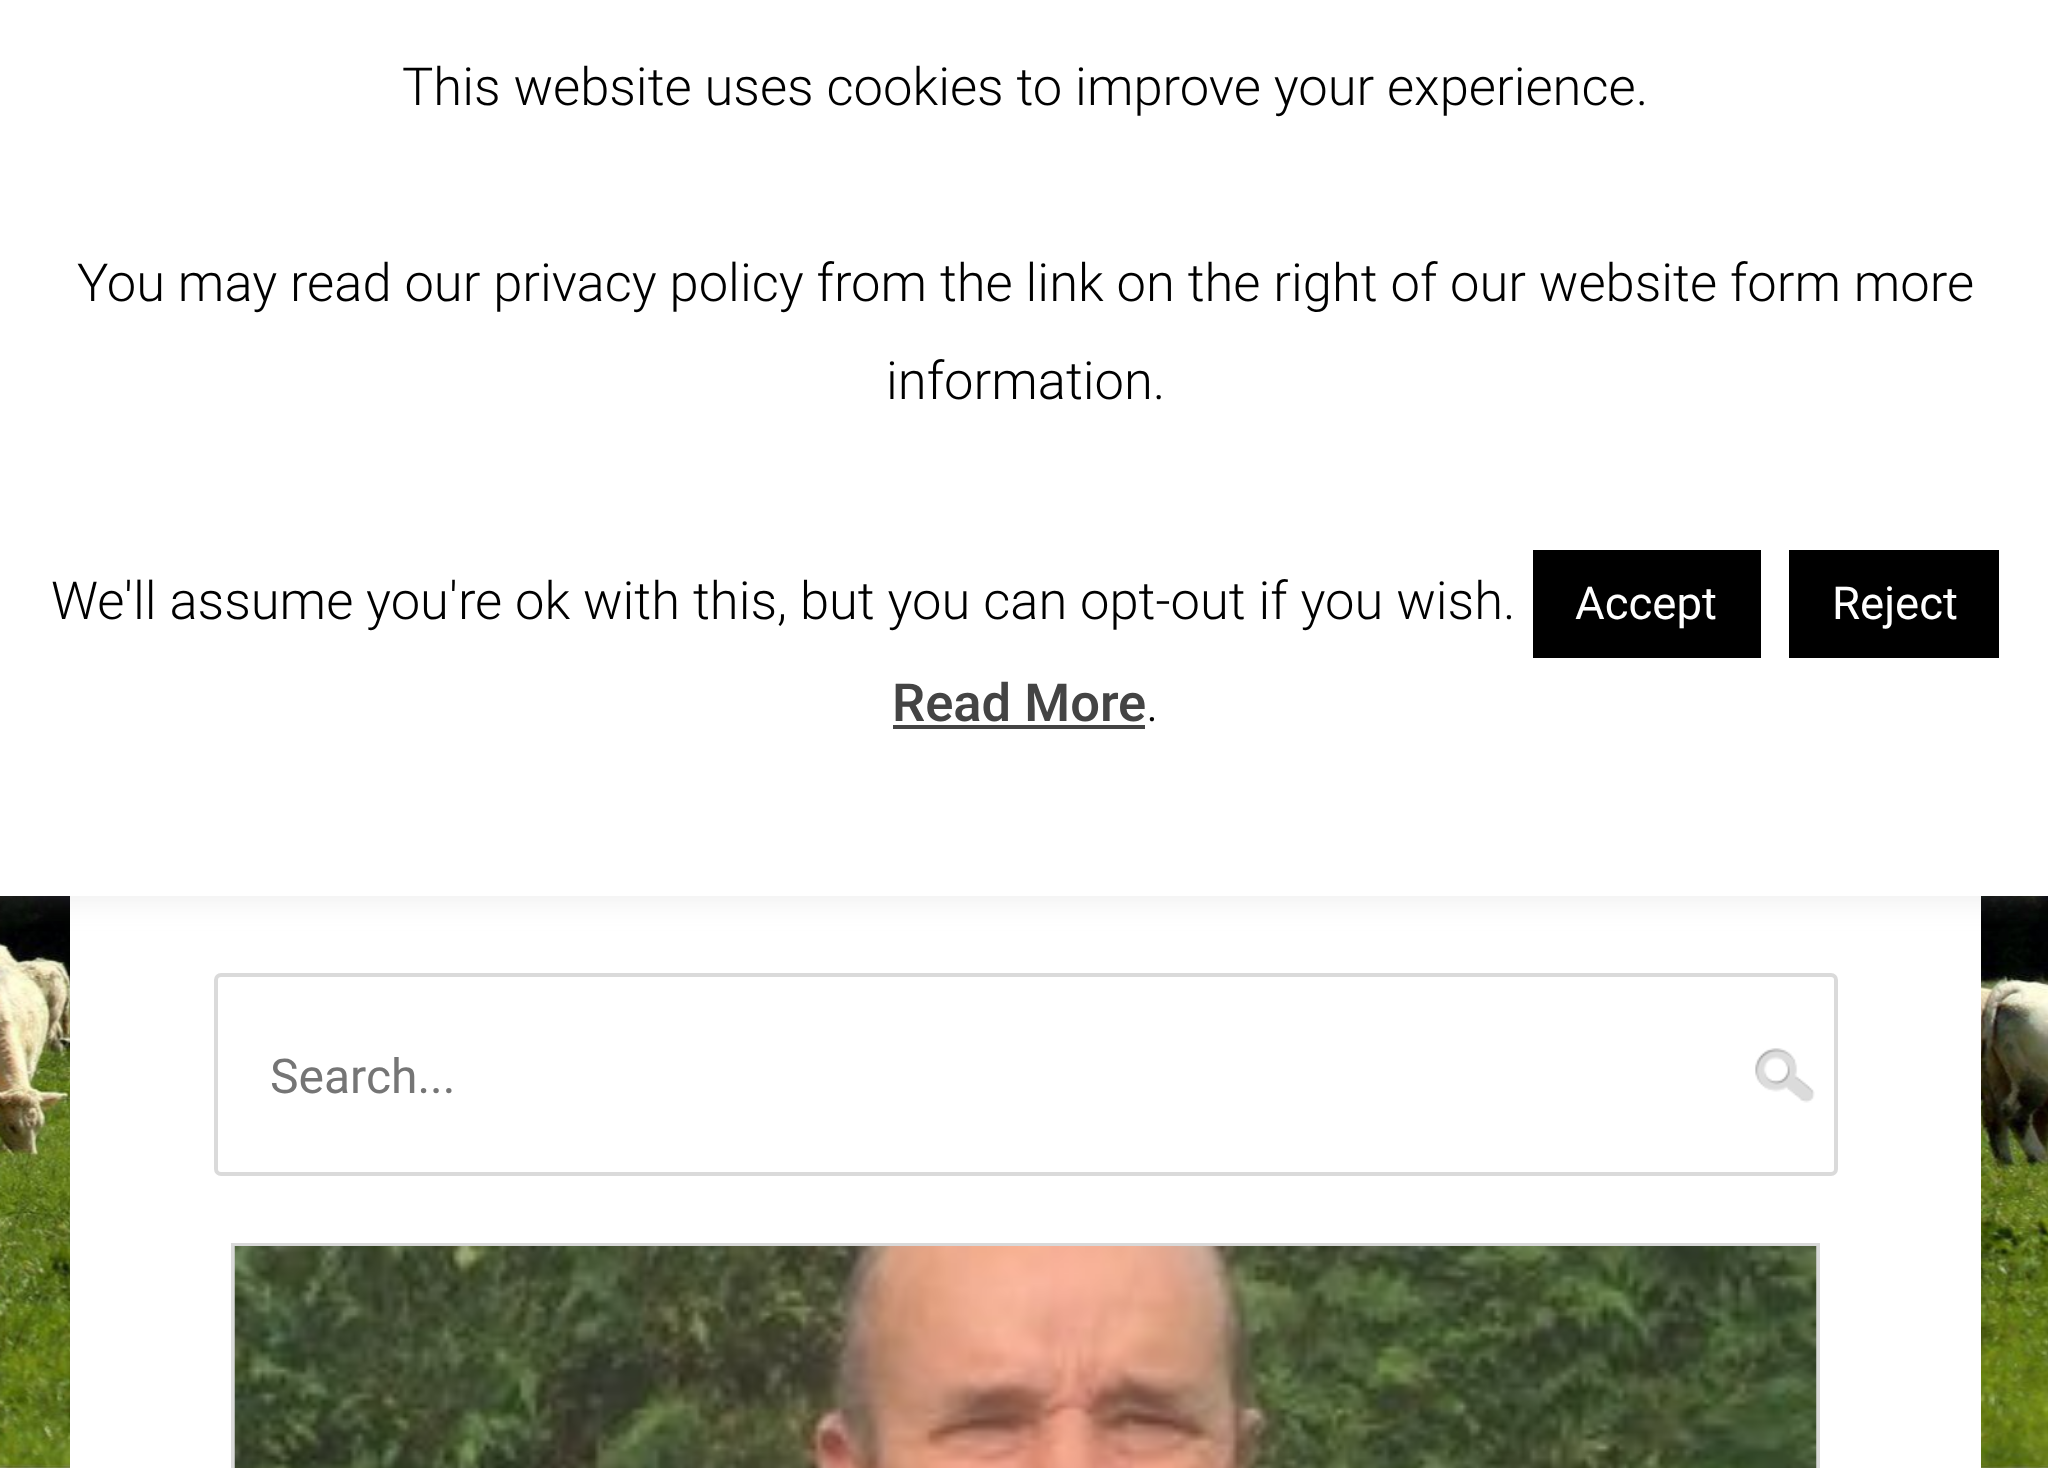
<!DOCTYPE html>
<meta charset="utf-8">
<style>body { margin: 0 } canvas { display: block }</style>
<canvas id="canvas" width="2048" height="1468"></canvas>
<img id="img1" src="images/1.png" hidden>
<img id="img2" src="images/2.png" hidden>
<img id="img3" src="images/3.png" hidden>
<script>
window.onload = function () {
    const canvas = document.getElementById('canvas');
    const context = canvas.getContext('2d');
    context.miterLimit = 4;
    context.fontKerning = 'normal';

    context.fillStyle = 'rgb(255, 255, 255)';
    context.fillRect(0, 0, 2048, 1468);
    context.drawImage(document.getElementById('img1'), 0, 896, 2048, 572);
    context.fillRect(70, 896, 1911, 572);
    context.fillStyle = 'rgba(172, 171, 171, 0.3)';
    context.filter = 'blur(17.5px)';
    context.beginPath();
    context.rect(0, -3, 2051, 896);
    context.fill();
    context.filter = 'none';
    context.fillStyle = 'rgb(255, 255, 255)';
    context.fillRect(0, 0, 2048, 896);
    context.fillStyle = 'rgb(0, 0, 0)';
    context.fillRect(1533, 550, 228, 108);
    context.fillRect(1789, 550, 210, 108);
    context.fillStyle = 'rgb(68, 68, 68)';
    context.fillRect(893, 725, 252, 4);
    context.drawImage(document.getElementById('img2'), 1755, 1048, 60, 55);
    context.beginPath();
    context.roundRect(216, 975, 1620, 199, 5);
    context.strokeStyle = 'rgb(218, 218, 218)';
    context.lineWidth = 4;
    context.stroke();
    context.strokeStyle = 'rgb(217, 217, 217)';
    context.strokeRect(233, 1245, 1585, 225);
    context.drawImage(document.getElementById('img3'), 234, 1246, 1583, 222);
    context.font = '300 52.5px Roboto';
    context.fillStyle = 'rgb(0, 0, 0)';
    context.fillText('This website uses cookies to improve your experience.', 402, 105);
    context.fillText('You may read our privacy policy from the link on the right of our website form more', 77, 301);
    context.fillText('information.', 886, 399);
    context.fillText('We\'ll assume you\'re ok with this, but you can opt-out if you wish.', 51, 619);
    context.font = '45.5px Roboto';
    context.fillStyle = 'rgb(255, 255, 255)';
    context.fillText('Accept', 1575, 619);
    context.fillText('Reject', 1832, 619);
    context.font = '500 52.5px Roboto';
    context.fillStyle = 'rgb(68, 68, 68)';
    context.fillText('Read More', 892, 721);
    context.font = '300 52.5px Roboto';
    context.fillStyle = 'rgb(0, 0, 0)';
    context.fillText('.', 1146, 721);
    context.font = '48px Roboto';
    context.fillStyle = 'rgb(117, 117, 117)';
    context.fillText('Search...', 270, 1093);
};
</script>
